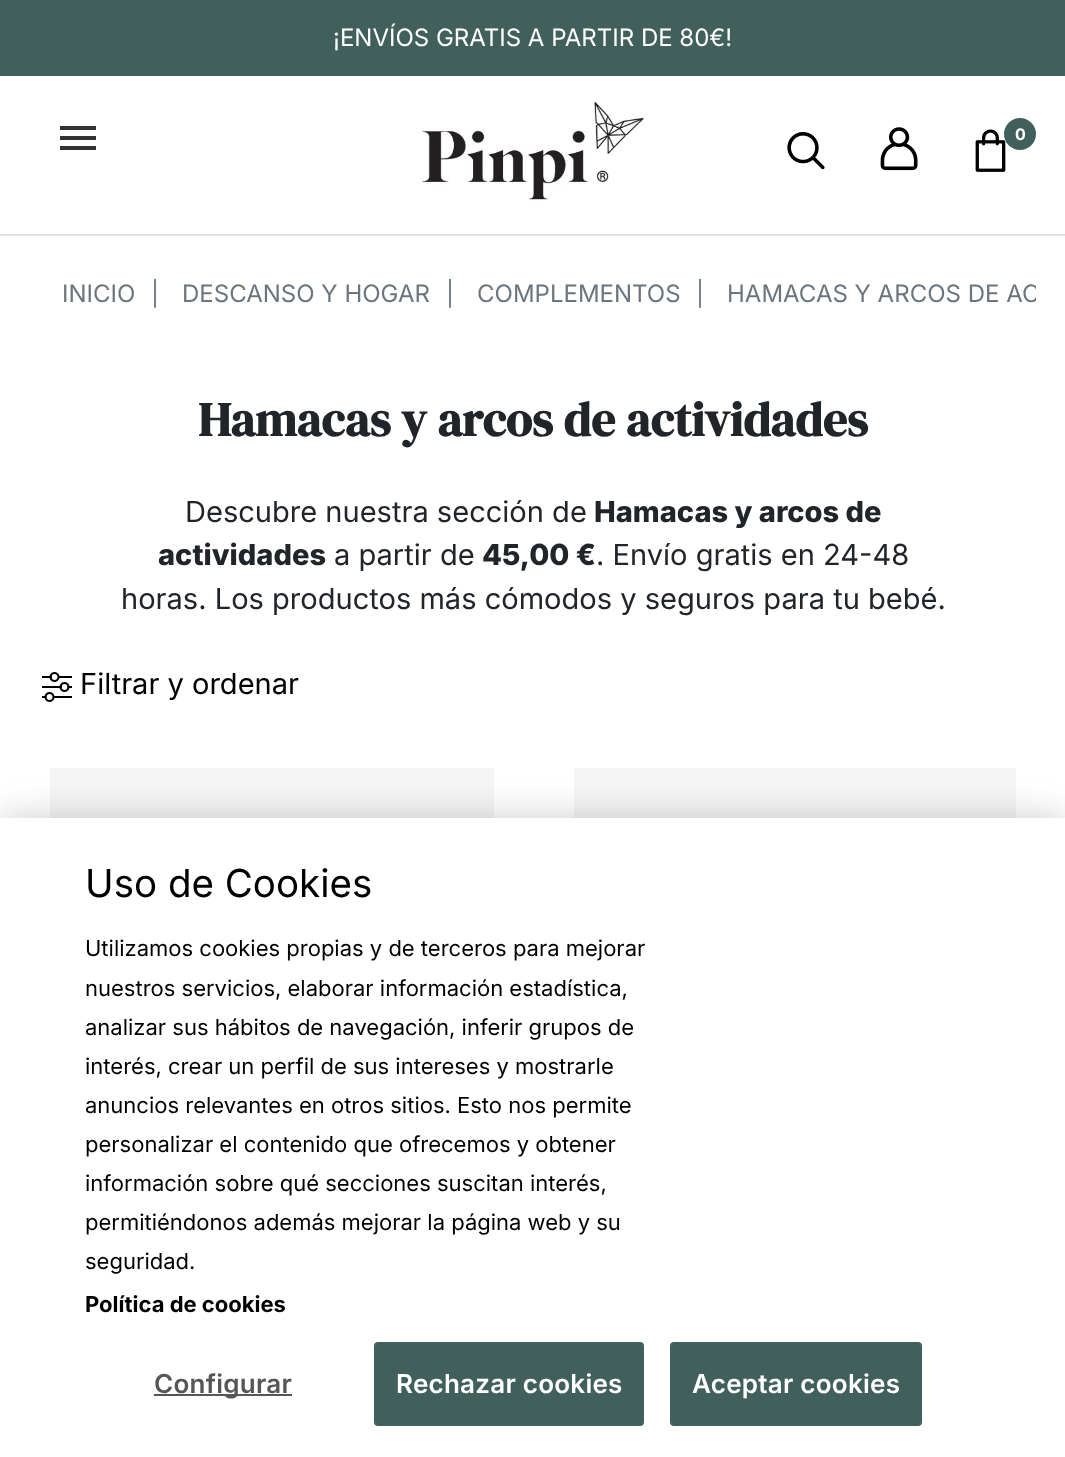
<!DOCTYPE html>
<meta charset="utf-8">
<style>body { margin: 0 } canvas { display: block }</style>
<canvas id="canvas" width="1065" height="1457"></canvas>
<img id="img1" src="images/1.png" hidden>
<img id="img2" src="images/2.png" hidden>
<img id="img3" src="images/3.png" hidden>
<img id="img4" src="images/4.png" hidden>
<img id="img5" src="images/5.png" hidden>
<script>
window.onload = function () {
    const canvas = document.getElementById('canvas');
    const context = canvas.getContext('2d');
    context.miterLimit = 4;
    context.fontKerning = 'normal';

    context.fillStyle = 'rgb(255, 255, 255)';
    context.fillRect(0, 0, 1065, 1457);
    context.fillStyle = 'rgb(245, 245, 245)';
    context.fillRect(574, 768, 442, 50);
    context.fillRect(50, 768, 444, 50);
    context.fillStyle = 'rgb(65, 96, 92)';
    context.fillRect(0, 0, 1065, 76);
    context.fillStyle = 'rgb(222, 226, 230)';
    context.fillRect(0, 234, 1065, 2);
    context.fillStyle = 'rgb(51, 51, 51)';
    context.fillRect(60, 126, 36, 4);
    context.fillRect(60, 136, 36, 4);
    context.fillRect(60, 146, 36, 4);
    context.drawImage(document.getElementById('img1'), 422, 102, 223, 99);
    context.drawImage(document.getElementById('img2'), 787, 132, 38, 38);
    context.drawImage(document.getElementById('img3'), 880, 127, 38, 44);
    context.drawImage(document.getElementById('img4'), 975, 129, 31, 43);
    context.fillStyle = 'rgb(65, 96, 92)';
    context.beginPath();
    context.arc(1020, 134, 16, 0, 2 * Math.PI);
    context.fill();
    context.drawImage(document.getElementById('img5'), 42, 672, 30, 30);
    context.fillStyle = 'rgba(0, 0, 0, 0.2)';
    context.filter = 'blur(18px)';
    context.beginPath();
    context.rect(0, 818, 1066, 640);
    context.fill();
    context.filter = 'none';
    context.fillStyle = 'rgb(255, 255, 255)';
    context.fillRect(0, 818, 1065, 639);
    context.fillStyle = 'rgb(86, 86, 86)';
    context.fillRect(154, 1394, 138, 2);
    context.fillStyle = 'rgb(65, 96, 92)';
    context.beginPath();
    context.roundRect(375, 1343, 268, 82, 3);
    context.fill();
    context.strokeStyle = 'rgb(65, 96, 92)';
    context.lineWidth = 2;
    context.stroke();
    context.beginPath();
    context.roundRect(671, 1343, 250, 82, 3);
    context.fill();
    context.stroke();
    context.font = '24px Inter';
    context.fillStyle = 'rgb(255, 255, 255)';
    context.fillText('¡ENVÍOS GRATIS A PARTIR DE 80€!', 333, 46);
    context.font = 'bold 16px Inter';
    context.fillText('0', 1015, 140);
    context.font = '24px Inter';
    context.fillStyle = 'rgb(108, 117, 125)';
    context.fillText('INICIO', 62, 302);
    context.fillText('|', 151, 302);
    context.fillText('DESCANSO Y HOGAR', 182, 302);
    context.fillText('|', 446, 302);
    context.fillText('COMPLEMENTOS', 477, 302);
    context.fillText('|', 696, 302);
    context.save();
    context.beginPath();
    context.roundRect(30, 276, 1006, 36, 12);
    context.clip();
    context.fillText('HAMACAS Y ARCOS DE AC', 727, 302);
    context.restore();
    context.font = 'bold 48px DM Serif Display';
    context.fillStyle = 'rgb(33, 37, 41)';
    context.fillText('Hamacas y arcos de actividades', 198, 436);
    context.font = '29.05px Inter';
    context.fillText('Descubre nuestra sección de', 185, 522);
    context.font = '800 29.05px Inter';
    context.fillText('Hamacas y arcos de', 594, 522);
    context.fillText('actividades', 158, 565);
    context.font = '29.05px Inter';
    context.fillText('a partir de', 334, 565);
    context.font = '800 29.05px Inter';
    context.fillText('45,00 €', 482, 565);
    context.font = '29.05px Inter';
    context.fillText('. Envío gratis en 24-48', 596, 565);
    context.fillText('horas. Los productos más cómodos y seguros para tu bebé.', 121, 609);
    context.fillStyle = 'rgb(0, 0, 0)';
    context.fillText('Filtrar y ordenar', 80, 694);
    context.font = '38.5px Inter';
    context.fillText('Uso de Cookies', 85, 897);
    context.font = '22px Inter';
    context.fillText('Utilizamos cookies propias y de terceros para mejorar', 85, 956);
    context.fillText('nuestros servicios, elaborar información estadística,', 85, 996);
    context.fillText('analizar sus hábitos de navegación, inferir grupos de', 85, 1035);
    context.fillText('interés, crear un perfil de sus intereses y mostrarle', 85, 1074);
    context.fillText('anuncios relevantes en otros sitios. Esto nos permite', 85, 1113);
    context.fillText('personalizar el contenido que ofrecemos y obtener', 85, 1152);
    context.fillText('información sobre qué secciones suscitan interés,', 85, 1191);
    context.fillText('permitiéndonos además mejorar la página web y su', 85, 1230);
    context.fillText('seguridad.', 85, 1269);
    context.font = 'bold 22px Inter';
    context.fillText('Política de cookies', 85, 1312);
    context.letterSpacing = '0.25px';
    context.font = '600 26px Inter';
    context.fillStyle = 'rgb(86, 86, 86)';
    context.fillText('Configurar', 154, 1393);
    context.fillStyle = 'rgb(255, 255, 255)';
    context.fillText('Rechazar cookies', 396, 1393);
    context.fillText('Aceptar cookies', 692, 1393);
};
</script>
